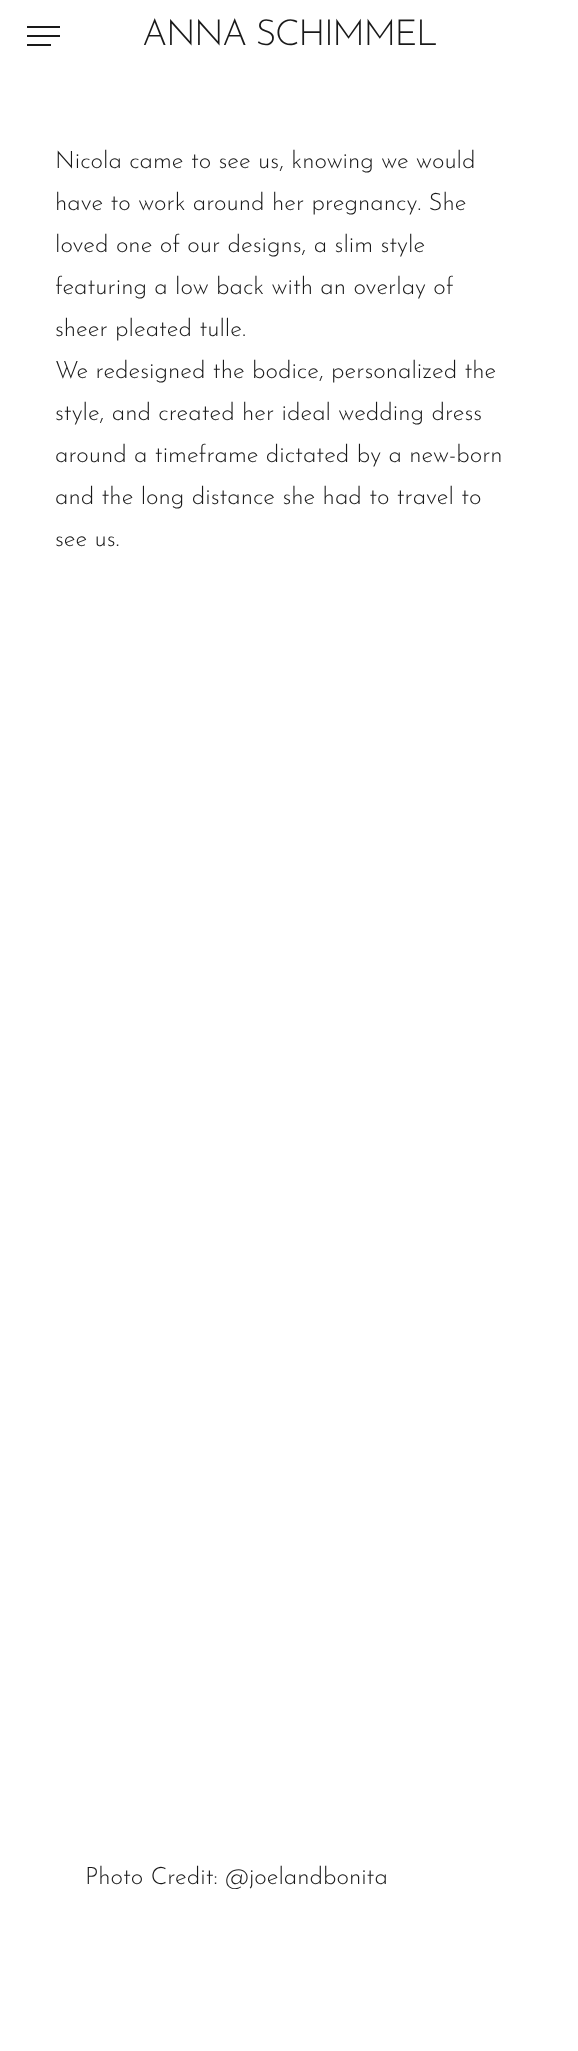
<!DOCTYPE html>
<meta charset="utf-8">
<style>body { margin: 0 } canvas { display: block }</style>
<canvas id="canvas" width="578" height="2051"></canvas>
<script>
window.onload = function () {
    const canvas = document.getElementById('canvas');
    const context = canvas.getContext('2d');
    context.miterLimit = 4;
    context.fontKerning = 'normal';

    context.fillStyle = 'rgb(255, 255, 255)';
    context.fillRect(0, 0, 578, 2051);
    context.fillStyle = 'rgb(25, 25, 25)';
    context.fillRect(27, 26, 33, 2);
    context.fillRect(27, 44, 24, 2);
    context.fillRect(27, 35, 33, 2);
    context.letterSpacing = '-1.5px';
    context.font = '300 36px Josefin Sans';
    context.fillText('ANNA SCHIMMEL', 142, 45);
    context.letterSpacing = '0px';
    context.font = '300 24px Josefin Sans';
    context.fillText('Nicola came to see us, knowing we would', 55, 168);
    context.fillText('have to work around her pregnancy. She', 55, 210);
    context.fillText('loved one of our designs, a slim style', 55, 252);
    context.fillText('featuring a low back with an overlay of', 55, 294);
    context.fillText('sheer pleated tulle.', 55, 336);
    context.fillText('We redesigned the bodice, personalized the', 55, 378);
    context.fillText('style, and created her ideal wedding dress', 55, 420);
    context.fillText('around a timeframe dictated by a new-born', 55, 462);
    context.fillText('and the long distance she had to travel to', 55, 504);
    context.fillText('see us.', 55, 546);
    context.fillText('Photo Credit: @joelandbonita', 85, 1884);
};
</script>
